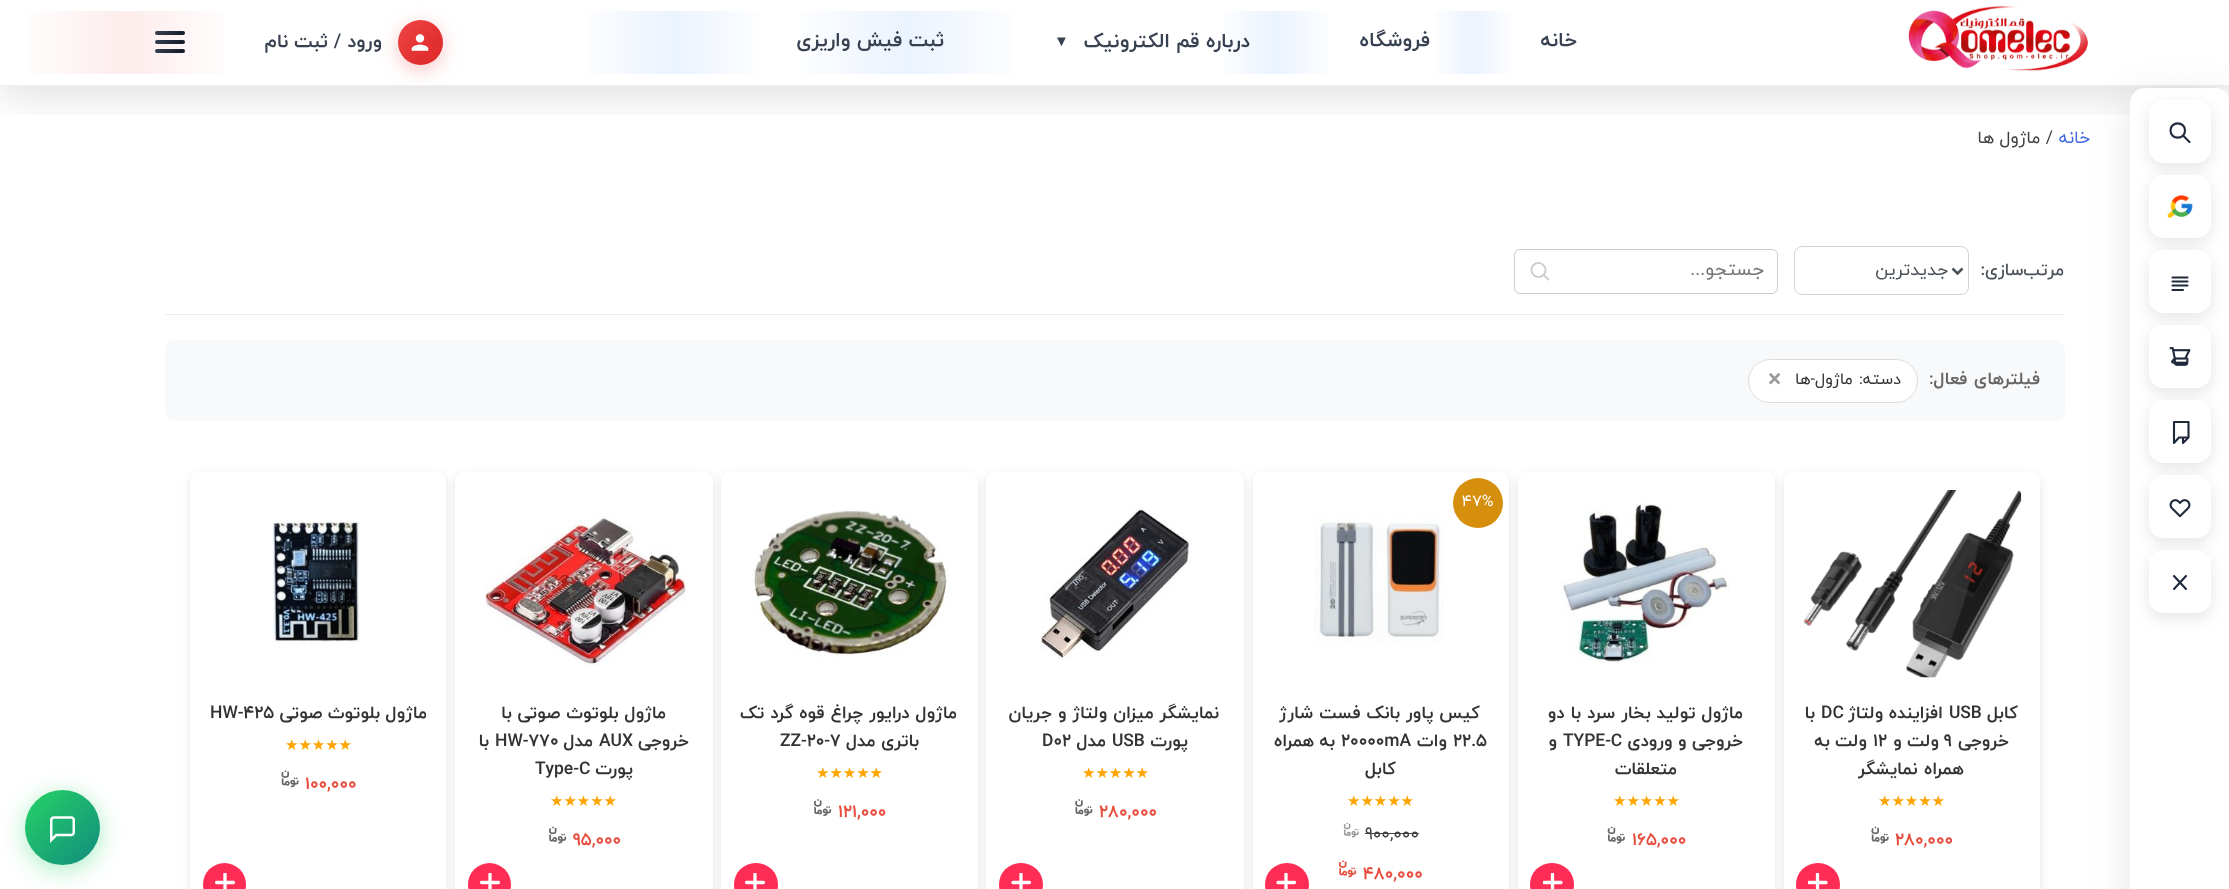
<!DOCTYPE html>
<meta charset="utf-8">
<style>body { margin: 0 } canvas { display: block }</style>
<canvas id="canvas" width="2229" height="889"></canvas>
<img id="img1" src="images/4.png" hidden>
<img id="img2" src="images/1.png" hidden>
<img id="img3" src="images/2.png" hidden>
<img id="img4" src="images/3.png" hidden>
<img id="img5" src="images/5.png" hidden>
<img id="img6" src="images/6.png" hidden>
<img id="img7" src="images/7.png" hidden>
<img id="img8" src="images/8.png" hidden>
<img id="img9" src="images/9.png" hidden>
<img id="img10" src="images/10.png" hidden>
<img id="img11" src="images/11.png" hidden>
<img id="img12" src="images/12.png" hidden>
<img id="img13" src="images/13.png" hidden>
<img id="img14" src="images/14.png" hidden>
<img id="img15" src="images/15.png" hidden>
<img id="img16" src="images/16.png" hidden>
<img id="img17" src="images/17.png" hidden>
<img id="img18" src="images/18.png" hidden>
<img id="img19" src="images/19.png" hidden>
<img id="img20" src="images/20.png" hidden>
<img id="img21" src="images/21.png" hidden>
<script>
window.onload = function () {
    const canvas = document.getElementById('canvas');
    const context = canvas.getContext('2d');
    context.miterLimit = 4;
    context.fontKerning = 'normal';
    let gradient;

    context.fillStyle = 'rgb(255, 255, 255)';
    context.fillRect(0, 0, 2229, 889);
    context.save();
    context.beginPath();
    context.rect(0, 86, 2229, 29);
    context.clip();
    context.fillStyle = 'rgba(0, 0, 0, 0.12)';
    context.filter = 'blur(20px)';
    context.beginPath();
    context.rect(0, 9, 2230, 87);
    context.fill();
    context.filter = 'none';
    context.restore();
    context.fillStyle = 'rgb(240, 240, 240)';
    context.fillRect(0, 85, 2229, 1);
    context.drawImage(document.getElementById('img1'), 1908, 5, 180, 66);
    context.save();
    context.beginPath();
    context.moveTo(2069, 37);
    context.lineTo(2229, 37);
    context.lineTo(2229, 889);
    context.lineTo(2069, 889);
    context.closePath();
    context.moveTo(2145, 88);
    context.lineTo(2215, 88);
    context.bezierCurveTo(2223.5, 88, 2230, 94.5, 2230, 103);
    context.lineTo(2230, 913);
    context.bezierCurveTo(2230, 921.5, 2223.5, 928, 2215, 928);
    context.lineTo(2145, 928);
    context.bezierCurveTo(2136.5, 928, 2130, 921.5, 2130, 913);
    context.lineTo(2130, 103);
    context.bezierCurveTo(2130, 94.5, 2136.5, 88, 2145, 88);
    context.closePath();
    context.clip('evenodd');
    context.fillStyle = 'rgba(0, 0, 0, 0.1)';
    context.filter = 'blur(20px)';
    context.beginPath();
    context.roundRect(2130, 98, 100, 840, 15);
    context.fill();
    context.filter = 'none';
    context.restore();
    context.fillStyle = 'rgba(255, 255, 255, 0.95)';
    context.beginPath();
    context.roundRect(2130, 88, 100, 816, 15);
    context.fill();
    context.save();
    context.beginPath();
    context.moveTo(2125, 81);
    context.lineTo(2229, 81);
    context.lineTo(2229, 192);
    context.lineTo(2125, 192);
    context.closePath();
    context.moveTo(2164, 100);
    context.lineTo(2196, 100);
    context.bezierCurveTo(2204.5, 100, 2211, 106.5, 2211, 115);
    context.lineTo(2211, 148);
    context.bezierCurveTo(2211, 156.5, 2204.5, 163, 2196, 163);
    context.lineTo(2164, 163);
    context.bezierCurveTo(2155.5, 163, 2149, 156.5, 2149, 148);
    context.lineTo(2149, 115);
    context.bezierCurveTo(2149, 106.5, 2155.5, 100, 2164, 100);
    context.closePath();
    context.clip('evenodd');
    context.fillStyle = 'rgba(0, 0, 0, 0.1)';
    context.filter = 'blur(7.5px)';
    context.beginPath();
    context.roundRect(2149, 105, 62, 63, 15);
    context.fill();
    context.filter = 'none';
    context.restore();
    context.fillStyle = 'rgba(255, 255, 255, 0.8)';
    context.beginPath();
    context.roundRect(2149, 100, 62, 63, 15);
    context.fill();
    context.beginPath();
    context.moveTo(2189.5, 142);
    context.lineTo(2183, 135.5);
    context.moveTo(2185, 130.5);
    context.bezierCurveTo(2185, 140, 2170.5, 140, 2170.5, 130.5);
    context.bezierCurveTo(2170.5, 121, 2185, 121, 2185, 130.5);
    context.closePath();
    context.strokeStyle = 'rgb(30, 41, 59)';
    context.lineWidth = 2.1;
    context.lineCap = 'round';
    context.lineJoin = 'round';
    context.stroke();
    context.save();
    context.beginPath();
    context.moveTo(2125, 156);
    context.lineTo(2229, 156);
    context.lineTo(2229, 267);
    context.lineTo(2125, 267);
    context.closePath();
    context.moveTo(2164, 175);
    context.lineTo(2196, 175);
    context.bezierCurveTo(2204.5, 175, 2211, 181.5, 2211, 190);
    context.lineTo(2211, 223);
    context.bezierCurveTo(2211, 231.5, 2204.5, 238, 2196, 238);
    context.lineTo(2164, 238);
    context.bezierCurveTo(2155.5, 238, 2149, 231.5, 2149, 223);
    context.lineTo(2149, 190);
    context.bezierCurveTo(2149, 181.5, 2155.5, 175, 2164, 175);
    context.closePath();
    context.clip('evenodd');
    context.fillStyle = 'rgba(0, 0, 0, 0.1)';
    context.filter = 'blur(7.5px)';
    context.beginPath();
    context.roundRect(2149, 180, 62, 63, 15);
    context.fill();
    context.filter = 'none';
    context.restore();
    context.beginPath();
    context.roundRect(2149, 175, 62, 63, 15);
    context.fill();
    context.drawImage(document.getElementById('img2'), 2167, 195, 26, 23);
    context.save();
    context.beginPath();
    context.moveTo(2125, 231);
    context.lineTo(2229, 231);
    context.lineTo(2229, 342);
    context.lineTo(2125, 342);
    context.closePath();
    context.moveTo(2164, 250);
    context.lineTo(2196, 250);
    context.bezierCurveTo(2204.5, 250, 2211, 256.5, 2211, 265);
    context.lineTo(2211, 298);
    context.bezierCurveTo(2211, 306.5, 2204.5, 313, 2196, 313);
    context.lineTo(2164, 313);
    context.bezierCurveTo(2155.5, 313, 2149, 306.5, 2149, 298);
    context.lineTo(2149, 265);
    context.bezierCurveTo(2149, 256.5, 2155.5, 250, 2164, 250);
    context.closePath();
    context.clip('evenodd');
    context.fillStyle = 'rgba(0, 0, 0, 0.1)';
    context.filter = 'blur(7.5px)';
    context.beginPath();
    context.roundRect(2149, 255, 62, 63, 15);
    context.fill();
    context.filter = 'none';
    context.restore();
    context.beginPath();
    context.roundRect(2149, 250, 62, 63, 15);
    context.fill();
    context.beginPath();
    context.moveTo(2187.5, 281.5);
    context.lineTo(2172.5, 281.5);
    context.moveTo(2187.5, 277.5);
    context.lineTo(2172.5, 277.5);
    context.moveTo(2187.5, 285.5);
    context.lineTo(2172.5, 285.5);
    context.moveTo(2183, 290);
    context.lineTo(2172.5, 290);
    context.stroke();
    context.save();
    context.beginPath();
    context.moveTo(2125, 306);
    context.lineTo(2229, 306);
    context.lineTo(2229, 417);
    context.lineTo(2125, 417);
    context.closePath();
    context.moveTo(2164, 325);
    context.lineTo(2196, 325);
    context.bezierCurveTo(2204.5, 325, 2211, 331.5, 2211, 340);
    context.lineTo(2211, 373);
    context.bezierCurveTo(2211, 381.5, 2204.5, 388, 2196, 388);
    context.lineTo(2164, 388);
    context.bezierCurveTo(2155.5, 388, 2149, 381.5, 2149, 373);
    context.lineTo(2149, 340);
    context.bezierCurveTo(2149, 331.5, 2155.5, 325, 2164, 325);
    context.closePath();
    context.clip('evenodd');
    context.fillStyle = 'rgba(0, 0, 0, 0.1)';
    context.filter = 'blur(7.5px)';
    context.beginPath();
    context.roundRect(2149, 330, 62, 63, 15);
    context.fill();
    context.filter = 'none';
    context.restore();
    context.beginPath();
    context.roundRect(2149, 325, 62, 63, 15);
    context.fill();
    context.drawImage(document.getElementById('img3'), 2169, 347, 22, 19);
    context.save();
    context.beginPath();
    context.moveTo(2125, 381);
    context.lineTo(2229, 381);
    context.lineTo(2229, 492);
    context.lineTo(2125, 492);
    context.closePath();
    context.moveTo(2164, 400);
    context.lineTo(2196, 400);
    context.bezierCurveTo(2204.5, 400, 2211, 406.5, 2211, 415);
    context.lineTo(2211, 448);
    context.bezierCurveTo(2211, 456.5, 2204.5, 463, 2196, 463);
    context.lineTo(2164, 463);
    context.bezierCurveTo(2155.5, 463, 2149, 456.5, 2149, 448);
    context.lineTo(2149, 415);
    context.bezierCurveTo(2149, 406.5, 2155.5, 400, 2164, 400);
    context.closePath();
    context.clip('evenodd');
    context.fillStyle = 'rgba(0, 0, 0, 0.1)';
    context.filter = 'blur(7.5px)';
    context.beginPath();
    context.roundRect(2149, 405, 62, 63, 15);
    context.fill();
    context.filter = 'none';
    context.restore();
    context.beginPath();
    context.roundRect(2149, 400, 62, 63, 15);
    context.fill();
    context.beginPath();
    context.moveTo(2183, 437.5);
    context.lineTo(2188.5, 437.5);
    context.lineTo(2183, 443);
    context.closePath();
    context.moveTo(2174, 422);
    context.lineTo(2174, 443);
    context.lineTo(2179, 437.5);
    context.lineTo(2188.5, 437.5);
    context.lineTo(2188.5, 422);
    context.closePath();
    context.stroke();
    context.save();
    context.beginPath();
    context.moveTo(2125, 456);
    context.lineTo(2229, 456);
    context.lineTo(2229, 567);
    context.lineTo(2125, 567);
    context.closePath();
    context.moveTo(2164, 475);
    context.lineTo(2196, 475);
    context.bezierCurveTo(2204.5, 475, 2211, 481.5, 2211, 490);
    context.lineTo(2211, 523);
    context.bezierCurveTo(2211, 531.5, 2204.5, 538, 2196, 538);
    context.lineTo(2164, 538);
    context.bezierCurveTo(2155.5, 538, 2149, 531.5, 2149, 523);
    context.lineTo(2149, 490);
    context.bezierCurveTo(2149, 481.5, 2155.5, 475, 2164, 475);
    context.closePath();
    context.clip('evenodd');
    context.fillStyle = 'rgba(0, 0, 0, 0.1)';
    context.filter = 'blur(7.5px)';
    context.beginPath();
    context.roundRect(2149, 480, 62, 63, 15);
    context.fill();
    context.filter = 'none';
    context.restore();
    context.beginPath();
    context.roundRect(2149, 475, 62, 63, 15);
    context.fill();
    context.drawImage(document.getElementById('img4'), 2169, 499, 22, 19);
    context.save();
    context.beginPath();
    context.moveTo(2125, 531);
    context.lineTo(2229, 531);
    context.lineTo(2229, 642);
    context.lineTo(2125, 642);
    context.closePath();
    context.moveTo(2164, 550);
    context.lineTo(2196, 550);
    context.bezierCurveTo(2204.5, 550, 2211, 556.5, 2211, 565);
    context.lineTo(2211, 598);
    context.bezierCurveTo(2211, 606.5, 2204.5, 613, 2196, 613);
    context.lineTo(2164, 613);
    context.bezierCurveTo(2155.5, 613, 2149, 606.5, 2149, 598);
    context.lineTo(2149, 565);
    context.bezierCurveTo(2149, 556.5, 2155.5, 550, 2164, 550);
    context.closePath();
    context.clip('evenodd');
    context.fillStyle = 'rgba(0, 0, 0, 0.1)';
    context.filter = 'blur(7.5px)';
    context.beginPath();
    context.roundRect(2149, 555, 62, 63, 15);
    context.fill();
    context.filter = 'none';
    context.restore();
    context.beginPath();
    context.roundRect(2149, 550, 62, 63, 15);
    context.fill();
    context.beginPath();
    context.moveTo(2186, 576);
    context.lineTo(2174, 589);
    context.moveTo(2174, 576);
    context.lineTo(2186, 589);
    context.stroke();
    gradient = context.createLinearGradient(1429, 43, 1516, 43);
    gradient.addColorStop(0, 'rgb(255, 255, 255)');
    gradient.addColorStop(0.5, 'rgb(235, 243, 254)');
    gradient.addColorStop(1, 'rgb(255, 255, 255)');
    context.fillStyle = gradient;
    context.fillRect(1434, 11, 77, 63);
    gradient = context.createLinearGradient(1215, 43, 1335, 43);
    gradient.addColorStop(0, 'rgb(255, 255, 255)');
    gradient.addColorStop(0.5, 'rgb(235, 243, 254)');
    gradient.addColorStop(1, 'rgb(255, 255, 255)');
    context.fillStyle = gradient;
    context.fillRect(1223, 11, 105, 63);
    gradient = context.createLinearGradient(784, 43, 1029, 42);
    gradient.addColorStop(0, 'rgb(255, 255, 255)');
    gradient.addColorStop(0.5, 'rgb(235, 243, 254)');
    gradient.addColorStop(1, 'rgb(255, 255, 255)');
    context.fillStyle = gradient;
    context.fillRect(799, 11, 215, 63);
    gradient = context.createLinearGradient(574, 43, 771, 42);
    gradient.addColorStop(0, 'rgb(255, 255, 255)');
    gradient.addColorStop(0.5, 'rgb(235, 243, 254)');
    gradient.addColorStop(1, 'rgb(255, 255, 255)');
    context.fillStyle = gradient;
    context.fillRect(586, 11, 173, 63);
    context.fillStyle = 'rgba(239, 68, 68, 0.3)';
    context.filter = 'blur(9.5px)';
    context.beginPath();
    context.roundRect(398, 25, 45, 45, 22.5);
    context.fill();
    context.filter = 'none';
    gradient = context.createLinearGradient(398, 20, 443, 65);
    gradient.addColorStop(0, 'rgb(239, 68, 68)');
    gradient.addColorStop(1, 'rgb(220, 38, 38)');
    context.fillStyle = gradient;
    context.beginPath();
    context.arc(420.5, 42.5, 22.5, 0, 2 * Math.PI);
    context.fill();
    context.drawImage(document.getElementById('img5'), 411, 34, 18, 17);
    gradient = context.createLinearGradient(13, 43, 240, 42);
    gradient.addColorStop(0, 'rgb(255, 255, 255)');
    gradient.addColorStop(0.5, 'rgb(253, 236, 236)');
    gradient.addColorStop(1, 'rgb(255, 255, 255)');
    context.fillStyle = gradient;
    context.fillRect(28, 11, 197, 63);
    gradient = context.createLinearGradient(162, 25, 178, 42);
    gradient.addColorStop(0, 'rgb(55, 65, 81)');
    gradient.addColorStop(1, 'rgb(17, 24, 39)');
    context.fillStyle = gradient;
    context.beginPath();
    context.roundRect(155, 31, 30, 4, 2);
    context.fill();
    gradient = context.createLinearGradient(162, 33, 178, 50);
    gradient.addColorStop(0, 'rgb(55, 65, 81)');
    gradient.addColorStop(1, 'rgb(17, 24, 39)');
    context.fillStyle = gradient;
    context.beginPath();
    context.roundRect(155, 40, 30, 4, 2);
    context.fill();
    gradient = context.createLinearGradient(162, 42, 178, 59);
    gradient.addColorStop(0, 'rgb(55, 65, 81)');
    gradient.addColorStop(1, 'rgb(17, 24, 39)');
    context.fillStyle = gradient;
    context.beginPath();
    context.roundRect(155, 49, 30, 4, 2);
    context.fill();
    context.fillStyle = 'rgb(238, 238, 238)';
    context.fillRect(165, 314, 1900, 1);
    context.beginPath();
    context.roundRect(1794.5, 246.5, 174, 48, 7.5);
    context.strokeStyle = 'rgb(206, 212, 218)';
    context.lineWidth = 1;
    context.lineJoin = 'miter';
    context.stroke();
    context.beginPath();
    context.moveTo(1952.5, 268.5);
    context.lineTo(1957.5, 273.5);
    context.lineTo(1962.5, 268.5);
    context.strokeStyle = 'rgb(73, 80, 87)';
    context.lineWidth = 2.5;
    context.lineCap = 'butt';
    context.stroke();
    context.beginPath();
    context.roundRect(1514.5, 249.5, 263, 44, 5.5);
    context.strokeStyle = 'rgb(204, 204, 204)';
    context.lineWidth = 1;
    context.stroke();
    context.beginPath();
    context.moveTo(1548.5, 279.5);
    context.lineTo(1543.5, 275);
    context.moveTo(1543.5, 275);
    context.bezierCurveTo(1550, 268.5, 1540, 258.5, 1533.5, 265);
    context.bezierCurveTo(1527, 271.5, 1537, 281.5, 1543.5, 275);
    context.closePath();
    context.lineWidth = 1.9;
    context.lineCap = 'round';
    context.lineJoin = 'round';
    context.stroke();
    context.fillStyle = 'rgb(248, 249, 250)';
    context.beginPath();
    context.roundRect(165, 340, 1900, 81, 10);
    context.fill();
    context.fillStyle = 'rgb(255, 255, 255)';
    context.beginPath();
    context.roundRect(1748.5, 359.5, 169, 43, 21.5);
    context.fill();
    context.strokeStyle = 'rgb(221, 221, 221)';
    context.lineWidth = 1;
    context.lineJoin = 'miter';
    context.stroke();
    context.fillStyle = 'rgba(0, 0, 0, 0.1)';
    context.filter = 'blur(5px)';
    context.beginPath();
    context.roundRect(1784, 474, 256, 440, 10);
    context.fill();
    context.filter = 'none';
    context.fillStyle = 'rgb(255, 255, 255)';
    context.beginPath();
    context.roundRect(1784, 471, 256, 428, 10);
    context.fill();
    context.drawImage(document.getElementById('img6'), 1803, 490, 219, 188);
    context.drawImage(document.getElementById('img7'), 1871, 826, 18, 18);
    context.fillStyle = 'rgb(255, 45, 85)';
    context.beginPath();
    context.roundRect(1796, 863, 44, 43, 21.5);
    context.fill();
    context.save();
    context.beginPath();
    context.rect(1808, 873, 20, 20);
    context.clip();
    context.beginPath();
    context.moveTo(1817.5, 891);
    context.lineTo(1817.5, 874);
    context.moveTo(1809, 882.5);
    context.lineTo(1826, 882.5);
    context.strokeStyle = 'rgb(255, 255, 255)';
    context.lineWidth = 3.3;
    context.lineJoin = 'round';
    context.stroke();
    context.restore();
    context.fillStyle = 'rgba(0, 0, 0, 0.1)';
    context.filter = 'blur(5px)';
    context.beginPath();
    context.roundRect(1518, 474, 257, 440, 10);
    context.fill();
    context.filter = 'none';
    context.fillStyle = 'rgb(255, 255, 255)';
    context.beginPath();
    context.roundRect(1518, 471, 257, 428, 10);
    context.fill();
    context.drawImage(document.getElementById('img8'), 1560, 503, 170, 160);
    context.drawImage(document.getElementById('img9'), 1607, 826, 18, 18);
    context.fillStyle = 'rgb(255, 45, 85)';
    context.beginPath();
    context.roundRect(1530, 863, 44, 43, 21.5);
    context.fill();
    context.save();
    context.beginPath();
    context.rect(1543, 873, 20, 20);
    context.clip();
    context.beginPath();
    context.moveTo(1552.5, 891);
    context.lineTo(1552.5, 874);
    context.moveTo(1544, 882.5);
    context.lineTo(1561, 882.5);
    context.strokeStyle = 'rgb(255, 255, 255)';
    context.lineWidth = 3.3;
    context.lineJoin = 'round';
    context.stroke();
    context.restore();
    context.fillStyle = 'rgba(0, 0, 0, 0.1)';
    context.filter = 'blur(5px)';
    context.beginPath();
    context.roundRect(1253, 474, 256, 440, 10);
    context.fill();
    context.filter = 'none';
    context.fillStyle = 'rgb(255, 255, 255)';
    context.beginPath();
    context.roundRect(1253, 471, 256, 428, 10);
    context.fill();
    context.fillStyle = 'rgb(214, 143, 12)';
    context.beginPath();
    context.arc(1478, 503, 25, 0, 2 * Math.PI);
    context.fill();
    context.drawImage(document.getElementById('img10'), 1314, 518, 130, 124);
    context.fillStyle = 'rgb(64, 64, 64)';
    context.fillRect(1365, 833, 54, 1);
    context.drawImage(document.getElementById('img11'), 1343, 822, 16, 16);
    context.drawImage(document.getElementById('img12'), 1338, 860, 19, 18);
    context.fillStyle = 'rgb(255, 45, 85)';
    context.beginPath();
    context.roundRect(1265, 863, 44, 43, 21.5);
    context.fill();
    context.save();
    context.beginPath();
    context.rect(1276, 873, 20, 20);
    context.clip();
    context.beginPath();
    context.moveTo(1286, 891);
    context.lineTo(1286, 874);
    context.moveTo(1278, 882.5);
    context.lineTo(1294.5, 882.5);
    context.strokeStyle = 'rgb(255, 255, 255)';
    context.lineWidth = 3.3;
    context.lineJoin = 'round';
    context.stroke();
    context.restore();
    context.fillStyle = 'rgba(0, 0, 0, 0.1)';
    context.filter = 'blur(5px)';
    context.beginPath();
    context.roundRect(986, 474, 258, 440, 10);
    context.fill();
    context.filter = 'none';
    context.fillStyle = 'rgb(255, 255, 255)';
    context.beginPath();
    context.roundRect(986, 471, 258, 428, 10);
    context.fill();
    context.drawImage(document.getElementById('img13'), 1040, 509, 153, 152);
    context.drawImage(document.getElementById('img14'), 1075, 799, 18, 17);
    context.fillStyle = 'rgb(255, 45, 85)';
    context.beginPath();
    context.roundRect(999, 863, 44, 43, 21.5);
    context.fill();
    context.save();
    context.beginPath();
    context.rect(1011, 873, 20, 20);
    context.clip();
    context.beginPath();
    context.moveTo(1021, 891);
    context.lineTo(1021, 874);
    context.moveTo(1013, 882.5);
    context.lineTo(1029.5, 882.5);
    context.strokeStyle = 'rgb(255, 255, 255)';
    context.lineWidth = 3.3;
    context.lineJoin = 'round';
    context.stroke();
    context.restore();
    context.fillStyle = 'rgba(0, 0, 0, 0.1)';
    context.filter = 'blur(5px)';
    context.beginPath();
    context.roundRect(721, 474, 257, 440, 10);
    context.fill();
    context.filter = 'none';
    context.fillStyle = 'rgb(255, 255, 255)';
    context.beginPath();
    context.roundRect(721, 471, 257, 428, 10);
    context.fill();
    context.drawImage(document.getElementById('img15'), 752, 510, 197, 151);
    context.drawImage(document.getElementById('img16'), 813, 799, 19, 18);
    context.fillStyle = 'rgb(255, 45, 85)';
    context.beginPath();
    context.roundRect(734, 863, 44, 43, 21.5);
    context.fill();
    context.save();
    context.beginPath();
    context.rect(745, 873, 20, 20);
    context.clip();
    context.beginPath();
    context.moveTo(755, 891);
    context.lineTo(755, 874);
    context.moveTo(746.5, 882.5);
    context.lineTo(763.5, 882.5);
    context.strokeStyle = 'rgb(255, 255, 255)';
    context.lineWidth = 3.3;
    context.lineJoin = 'round';
    context.stroke();
    context.restore();
    context.fillStyle = 'rgba(0, 0, 0, 0.1)';
    context.filter = 'blur(5px)';
    context.beginPath();
    context.roundRect(455, 474, 258, 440, 10);
    context.fill();
    context.filter = 'none';
    context.fillStyle = 'rgb(255, 255, 255)';
    context.beginPath();
    context.roundRect(455, 471, 258, 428, 10);
    context.fill();
    context.drawImage(document.getElementById('img17'), 485, 516, 201, 150);
    context.drawImage(document.getElementById('img18'), 548, 826, 19, 18);
    context.fillStyle = 'rgb(255, 45, 85)';
    context.beginPath();
    context.arc(489.5, 884.5, 21.5, 0, 2 * Math.PI);
    context.fill();
    context.save();
    context.beginPath();
    context.rect(480, 873, 20, 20);
    context.clip();
    context.beginPath();
    context.moveTo(490, 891);
    context.lineTo(490, 874);
    context.moveTo(481.5, 882.5);
    context.lineTo(498.5, 882.5);
    context.strokeStyle = 'rgb(255, 255, 255)';
    context.lineWidth = 3.3;
    context.lineJoin = 'round';
    context.stroke();
    context.restore();
    context.fillStyle = 'rgba(0, 0, 0, 0.1)';
    context.filter = 'blur(5px)';
    context.beginPath();
    context.roundRect(190, 474, 256, 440, 10);
    context.fill();
    context.filter = 'none';
    context.fillStyle = 'rgb(255, 255, 255)';
    context.beginPath();
    context.roundRect(190, 471, 256, 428, 10);
    context.fill();
    context.drawImage(document.getElementById('img19'), 270, 521, 91, 123);
    context.drawImage(document.getElementById('img20'), 281, 770, 18, 18);
    context.fillStyle = 'rgb(255, 45, 85)';
    context.beginPath();
    context.arc(224.5, 884.5, 21.5, 0, 2 * Math.PI);
    context.fill();
    context.save();
    context.beginPath();
    context.rect(215, 873, 20, 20);
    context.clip();
    context.beginPath();
    context.moveTo(225, 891);
    context.lineTo(225, 874);
    context.moveTo(216.5, 882.5);
    context.lineTo(233.5, 882.5);
    context.strokeStyle = 'rgb(255, 255, 255)';
    context.lineWidth = 3.3;
    context.lineJoin = 'round';
    context.stroke();
    context.restore();
    context.fillStyle = 'rgba(37, 211, 102, 0.4)';
    context.filter = 'blur(12.5px)';
    context.beginPath();
    context.roundRect(25, 795, 75, 75, 37.5);
    context.fill();
    context.filter = 'none';
    gradient = context.createLinearGradient(25, 790, 100, 865);
    gradient.addColorStop(0, 'rgb(37, 211, 102)');
    gradient.addColorStop(1, 'rgb(18, 140, 126)');
    context.fillStyle = gradient;
    context.beginPath();
    context.arc(62.5, 827.5, 37.5, 0, 2 * Math.PI);
    context.fill();
    context.drawImage(document.getElementById('img21'), 50, 816, 25, 27);
    context.letterSpacing = '-0.05px';
    context.direction = 'rtl';
    context.font = 'bold 20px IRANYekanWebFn';
    context.fillStyle = 'rgb(55, 65, 81)';
    context.fillText('خانه', 1577, 46);
    context.fillText('فروشگاه', 1430, 46);
    context.letterSpacing = '0px';
    context.fillText('درباره قم الکترونیک', 1250, 47);
    context.direction = 'ltr';
    context.font = 'bold 15px Liberation Sans';
    context.fillText('▼', 1054, 46);
    context.letterSpacing = '-0.05px';
    context.direction = 'rtl';
    context.font = 'bold 20px IRANYekanWebFn';
    context.fillText('ثبت فیش واریزی', 944, 46);
    context.font = 'bold 19px IRANYekanWebFn';
    context.fillText('ورود / ثبت نام', 382, 47);
    context.font = '17.5px IRANYekanWebFn';
    context.fillStyle = 'rgb(65, 105, 225)';
    context.fillText('خانه', 2090, 143);
    context.fillStyle = 'rgb(64, 64, 64)';
    context.fillText('/ ماژول ها', 2053, 143);
    context.font = '500 17.5px IRANYekanWebFn';
    context.fillStyle = 'rgb(73, 80, 87)';
    context.fillText('مرتب‌سازی:', 2064, 275);
    context.letterSpacing = '0px';
    context.font = '17.5px IRANYekanWebFn';
    context.fillText('جدیدترین', 1948, 275);
    context.font = '19px IRANYekanWebFn';
    context.fillStyle = 'rgb(117, 117, 117)';
    context.fillText('جستجو...', 1764, 275);
    context.letterSpacing = '-0.05px';
    context.wordSpacing = '1px';
    context.font = 'bold 17.5px IRANYekanWebFn';
    context.fillStyle = 'rgb(102, 102, 102)';
    context.fillText('فیلترهای فعال:', 2040, 384);
    context.font = '16.25px IRANYekanWebFn';
    context.fillStyle = 'rgb(51, 51, 51)';
    context.fillText('دسته: ماژول-ها', 1901, 384);
    context.letterSpacing = '0px';
    context.wordSpacing = '0px';
    context.direction = 'ltr';
    context.font = 'bold 25px IRANYekanWebFn';
    context.fillStyle = 'rgb(153, 153, 153)';
    context.fillText('×', 1768, 387);
    context.letterSpacing = '-0.05px';
    context.direction = 'rtl';
    context.font = 'bold 17.5px IRANYekanWebFn';
    context.fillStyle = 'rgb(51, 51, 51)';
    context.fillText('کابل', 2018, 718);
    context.direction = 'ltr';
    context.fillText('USB', 1949, 718);
    context.direction = 'rtl';
    context.fillText('افزاینده ولتاژ', 1943, 718);
    context.direction = 'ltr';
    context.fillText('DC', 1821, 718);
    context.direction = 'rtl';
    context.fillText('با', 1815, 718);
    context.fillText('خروجی', 2009, 746);
    context.direction = 'ltr';
    context.fillText('9', 1944, 746);
    context.direction = 'rtl';
    context.fillText('ولت و', 1939, 746);
    context.direction = 'ltr';
    context.fillText('12', 1873, 746);
    context.direction = 'rtl';
    context.fillText('ولت به', 1867, 746);
    context.wordSpacing = '1px';
    context.fillText('همراه نمایشگر', 1964, 774);
    context.wordSpacing = '0px';
    context.direction = 'ltr';
    context.font = '15px DejaVu Sans';
    context.fillStyle = 'rgb(255, 165, 0)';
    context.fillText('★★★★★', 1878, 806);
    context.font = 'bold 17.5px IRANYekanWebFn';
    context.fillStyle = 'rgb(231, 76, 60)';
    context.fillText('280,000', 1895, 845);
    context.wordSpacing = '0.5px';
    context.direction = 'rtl';
    context.fillStyle = 'rgb(51, 51, 51)';
    context.fillText('ماژول تولید بخار سرد با دو', 1743, 718);
    context.wordSpacing = '0px';
    context.fillText('خروجی و ورودی', 1743, 746);
    context.direction = 'ltr';
    context.fillText('TYPE-C', 1563, 746);
    context.direction = 'rtl';
    context.fillText('و', 1557, 746);
    context.fillText('متعلقات', 1677, 774);
    context.direction = 'ltr';
    context.font = '15px DejaVu Sans';
    context.fillStyle = 'rgb(255, 165, 0)';
    context.fillText('★★★★★', 1613, 806);
    context.font = 'bold 17.5px IRANYekanWebFn';
    context.fillStyle = 'rgb(231, 76, 60)';
    context.fillText('165,000', 1632, 845);
    context.font = '16px IRANYekanWebFn';
    context.fillStyle = 'rgb(255, 255, 255)';
    context.fillText('47%', 1462, 506);
    context.wordSpacing = '0.5px';
    context.direction = 'rtl';
    context.font = 'bold 17.5px IRANYekanWebFn';
    context.fillStyle = 'rgb(51, 51, 51)';
    context.fillText('کیس پاور بانک فست شارژ', 1480, 718);
    context.wordSpacing = '0px';
    context.direction = 'ltr';
    context.fillText('22.5', 1453, 746);
    context.direction = 'rtl';
    context.fillText('وات', 1447, 746);
    context.direction = 'ltr';
    context.fillText('20000mA', 1341, 746);
    context.direction = 'rtl';
    context.fillText('به همراه', 1335, 746);
    context.fillText('کابل', 1396, 774);
    context.direction = 'ltr';
    context.font = '15px DejaVu Sans';
    context.fillStyle = 'rgb(255, 165, 0)';
    context.fillText('★★★★★', 1347, 806);
    context.font = '17.5px IRANYekanWebFn';
    context.fillStyle = 'rgb(64, 64, 64)';
    context.fillText('900,000', 1365, 839);
    context.font = 'bold 17.5px IRANYekanWebFn';
    context.fillStyle = 'rgb(231, 76, 60)';
    context.fillText('480,000', 1363, 879);
    context.wordSpacing = '0.5px';
    context.direction = 'rtl';
    context.fillStyle = 'rgb(51, 51, 51)';
    context.fillText('نمایشگر میزان ولتاژ و جریان', 1219, 718);
    context.wordSpacing = '0px';
    context.fillText('پورت', 1188, 746);
    context.direction = 'ltr';
    context.fillText('USB', 1112, 746);
    context.direction = 'rtl';
    context.fillText('مدل', 1106, 746);
    context.direction = 'ltr';
    context.fillText('D02', 1042, 746);
    context.font = '15px DejaVu Sans';
    context.fillStyle = 'rgb(255, 165, 0)';
    context.fillText('★★★★★', 1082, 778);
    context.font = 'bold 17.5px IRANYekanWebFn';
    context.fillStyle = 'rgb(231, 76, 60)';
    context.fillText('280,000', 1099, 817);
    context.wordSpacing = '0.5px';
    context.direction = 'rtl';
    context.fillStyle = 'rgb(51, 51, 51)';
    context.fillText('ماژول درایور چراغ قوه گرد تک', 957, 718);
    context.wordSpacing = '0px';
    context.fillText('باتری مدل', 919, 746);
    context.direction = 'ltr';
    context.fillText('ZZ-20-7', 780, 746);
    context.font = '15px DejaVu Sans';
    context.fillStyle = 'rgb(255, 165, 0)';
    context.fillText('★★★★★', 816, 778);
    context.font = 'bold 17.5px IRANYekanWebFn';
    context.fillStyle = 'rgb(231, 76, 60)';
    context.fillText('121,000', 838, 817);
    context.wordSpacing = '0.5px';
    context.direction = 'rtl';
    context.fillStyle = 'rgb(51, 51, 51)';
    context.fillText('ماژول بلوتوث صوتی با', 666, 718);
    context.wordSpacing = '0px';
    context.fillText('خروجی', 689, 746);
    context.direction = 'ltr';
    context.fillText('AUX', 599, 746);
    context.direction = 'rtl';
    context.fillText('مدل', 593, 746);
    context.direction = 'ltr';
    context.fillText('HW-770', 495, 746);
    context.direction = 'rtl';
    context.fillText('با', 489, 746);
    context.fillText('پورت', 633, 774);
    context.direction = 'ltr';
    context.fillText('Type-C', 535, 774);
    context.font = '15px DejaVu Sans';
    context.fillStyle = 'rgb(255, 165, 0)';
    context.fillText('★★★★★', 550, 806);
    context.font = 'bold 17.5px IRANYekanWebFn';
    context.fillStyle = 'rgb(231, 76, 60)';
    context.fillText('95,000', 573, 845);
    context.direction = 'rtl';
    context.fillStyle = 'rgb(51, 51, 51)';
    context.fillText('ماژول بلوتوث صوتی', 427, 718);
    context.direction = 'ltr';
    context.fillText('HW-425', 210, 718);
    context.font = '15px DejaVu Sans';
    context.fillStyle = 'rgb(255, 165, 0)';
    context.fillText('★★★★★', 285, 750);
    context.font = 'bold 17.5px IRANYekanWebFn';
    context.fillStyle = 'rgb(231, 76, 60)';
    context.fillText('100,000', 305, 789);
};
</script>
